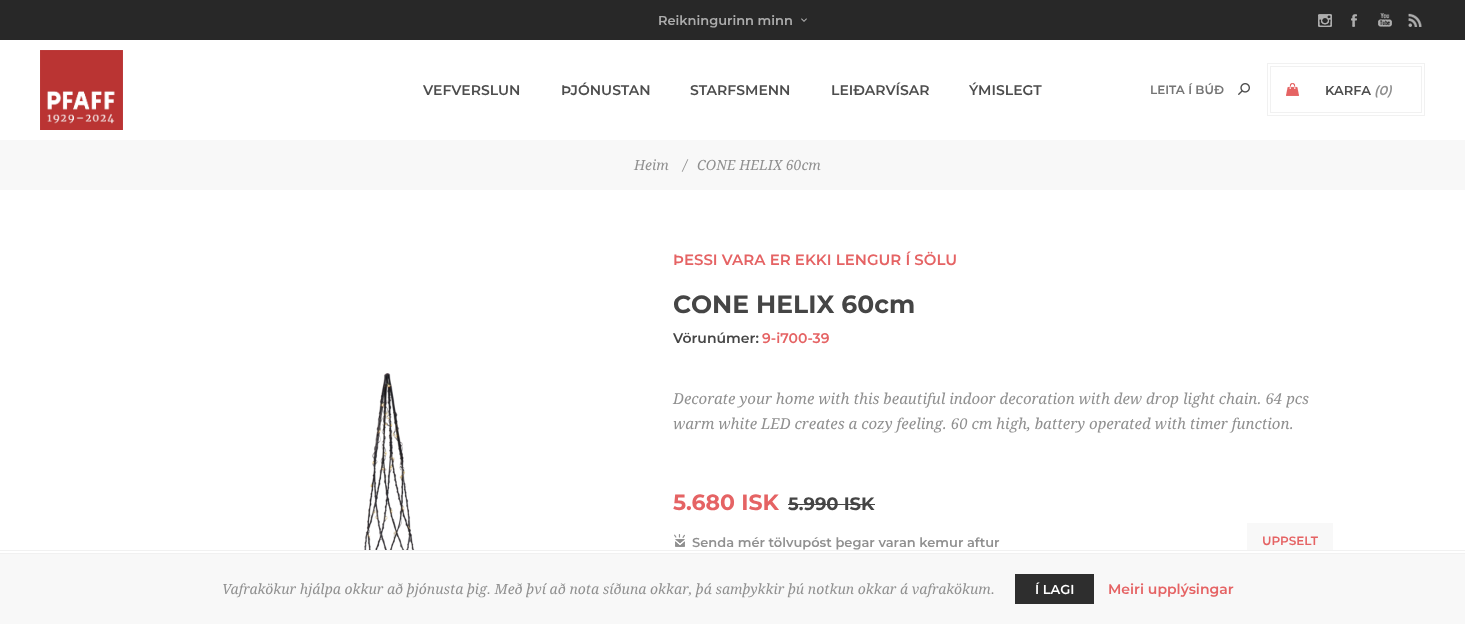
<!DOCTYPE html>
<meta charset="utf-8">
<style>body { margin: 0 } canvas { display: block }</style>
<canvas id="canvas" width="1465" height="624"></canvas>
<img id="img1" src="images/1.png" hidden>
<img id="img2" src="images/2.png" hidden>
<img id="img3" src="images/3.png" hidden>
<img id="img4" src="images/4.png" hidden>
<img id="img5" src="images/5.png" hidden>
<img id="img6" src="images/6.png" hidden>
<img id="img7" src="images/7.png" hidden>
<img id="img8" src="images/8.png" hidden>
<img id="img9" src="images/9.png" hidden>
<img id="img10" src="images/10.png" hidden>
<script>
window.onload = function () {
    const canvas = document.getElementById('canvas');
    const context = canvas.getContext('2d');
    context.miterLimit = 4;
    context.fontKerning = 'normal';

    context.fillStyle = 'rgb(255, 255, 255)';
    context.fillRect(0, 0, 1465, 624);
    context.fillStyle = 'rgb(40, 40, 40)';
    context.fillRect(0, 0, 1465, 40);
    context.drawImage(document.getElementById('img1'), 801, 18, 6, 4);
    context.drawImage(document.getElementById('img2'), 1318, 14, 14, 13);
    context.drawImage(document.getElementById('img3'), 1351, 14, 6, 13);
    context.drawImage(document.getElementById('img4'), 1378, 13, 14, 14);
    context.drawImage(document.getElementById('img5'), 1408, 13, 14, 14);
    context.drawImage(document.getElementById('img6'), 40, 50, 83, 80);
    context.drawImage(document.getElementById('img7'), 1238, 83, 12, 12);
    context.strokeStyle = 'rgb(241, 241, 241)';
    context.strokeRect(1267.5, 63.5, 157, 52);
    context.strokeRect(1270.5, 66.5, 151, 46);
    context.fillStyle = 'rgb(229, 99, 99)';
    context.fillRect(1286, 83, 13, 13);
    context.drawImage(document.getElementById('img8'), 1286, 83, 13, 13);
    context.fillStyle = 'rgb(248, 248, 248)';
    context.fillRect(0, 140, 1465, 50);
    context.drawImage(document.getElementById('img9'), 364, 373, 51, 177);
    context.fillStyle = 'rgb(69, 69, 69)';
    context.fillRect(788, 504, 87, 1);
    context.drawImage(document.getElementById('img10'), 674, 534, 11, 13);
    context.fillStyle = 'rgb(248, 248, 248)';
    context.fillRect(1247, 523, 86, 27);
    context.fillRect(0, 554, 1465, 70);
    context.fillStyle = 'rgb(241, 241, 241)';
    context.fillRect(0, 550, 1465, 1);
    context.fillRect(0, 553, 1465, 1);
    context.fillStyle = 'rgb(46, 46, 46)';
    context.fillRect(1015, 574, 79, 30);
    context.font = '600 13px Montserrat';
    context.fillStyle = 'rgb(173, 173, 173)';
    context.fillText('Reikningurinn minn', 658, 25);
    context.font = '600 14px Montserrat';
    context.fillStyle = 'rgb(77, 77, 77)';
    context.fillText('VEFVERSLUN', 423, 95);
    context.fillText('ÞJÓNUSTAN', 561, 95);
    context.fillText('STARFSMENN', 690, 95);
    context.fillText('LEIÐARVÍSAR', 831, 95);
    context.fillText('ÝMISLEGT', 969, 95);
    context.font = '600 12px Montserrat';
    context.fillStyle = 'rgb(117, 117, 117)';
    context.fillText('LEITA Í BÚÐ', 1150, 94);
    context.font = '600 13px Montserrat';
    context.fillStyle = 'rgb(77, 77, 77)';
    context.fillText('KARFA', 1325, 95);
    context.font = 'italic 600 13px Montserrat';
    context.fillStyle = 'rgb(144, 144, 144)';
    context.fillText('(0)', 1374, 95);
    context.font = 'italic 14px Droid Serif';
    context.fillText('Heim', 634, 170);
    context.fillText('/', 683, 170);
    context.fillText('CONE HELIX 60cm', 697, 170);
    context.font = '600 15px Montserrat';
    context.fillStyle = 'rgb(229, 99, 100)';
    context.fillText('ÞESSI VARA ER EKKI LENGUR Í SÖLU', 673, 265);
    context.font = 'bold 25px Montserrat';
    context.fillStyle = 'rgb(69, 69, 69)';
    context.fillText('CONE HELIX 60cm', 673, 313);
    context.font = '600 14px Montserrat';
    context.fillText('Vörunúmer:', 673, 343);
    context.fillStyle = 'rgb(229, 99, 100)';
    context.fillText('9-i700-39', 762, 343);
    context.font = 'italic 15px Droid Serif';
    context.fillStyle = 'rgb(144, 144, 144)';
    context.fillText('Decorate your home with this beautiful indoor decoration with dew drop light chain. 64 pcs', 673, 404);
    context.fillText('warm white LED creates a cozy feeling. 60 cm high, battery operated with timer function.', 673, 429);
    context.font = 'bold 22px Montserrat';
    context.fillStyle = 'rgb(229, 99, 100)';
    context.fillText('5.680 ISK', 673, 510);
    context.font = 'bold 18px Montserrat';
    context.fillStyle = 'rgb(69, 69, 69)';
    context.fillText('5.990 ISK', 788, 510);
    context.font = '600 13px Montserrat';
    context.fillStyle = 'rgb(144, 144, 144)';
    context.fillText('Senda mér tölvupóst þegar varan kemur aftur', 692, 547);
    context.font = '600 12px Montserrat';
    context.fillStyle = 'rgb(229, 99, 100)';
    context.fillText('UPPSELT', 1262, 545);
    context.font = 'italic 14px Droid Serif';
    context.fillStyle = 'rgb(144, 144, 144)';
    context.fillText('Vafrakökur hjálpa okkur að þjónusta þig. Með því að nota síðuna okkar, þá samþykkir þú notkun okkar á vafrakökum.', 222, 594);
    context.font = '600 13px Montserrat';
    context.fillStyle = 'rgb(255, 255, 255)';
    context.fillText('Í LAGI', 1035, 594);
    context.font = '600 14px Montserrat';
    context.fillStyle = 'rgb(229, 99, 100)';
    context.fillText('Meiri upplýsingar', 1108, 594);
};
</script>
